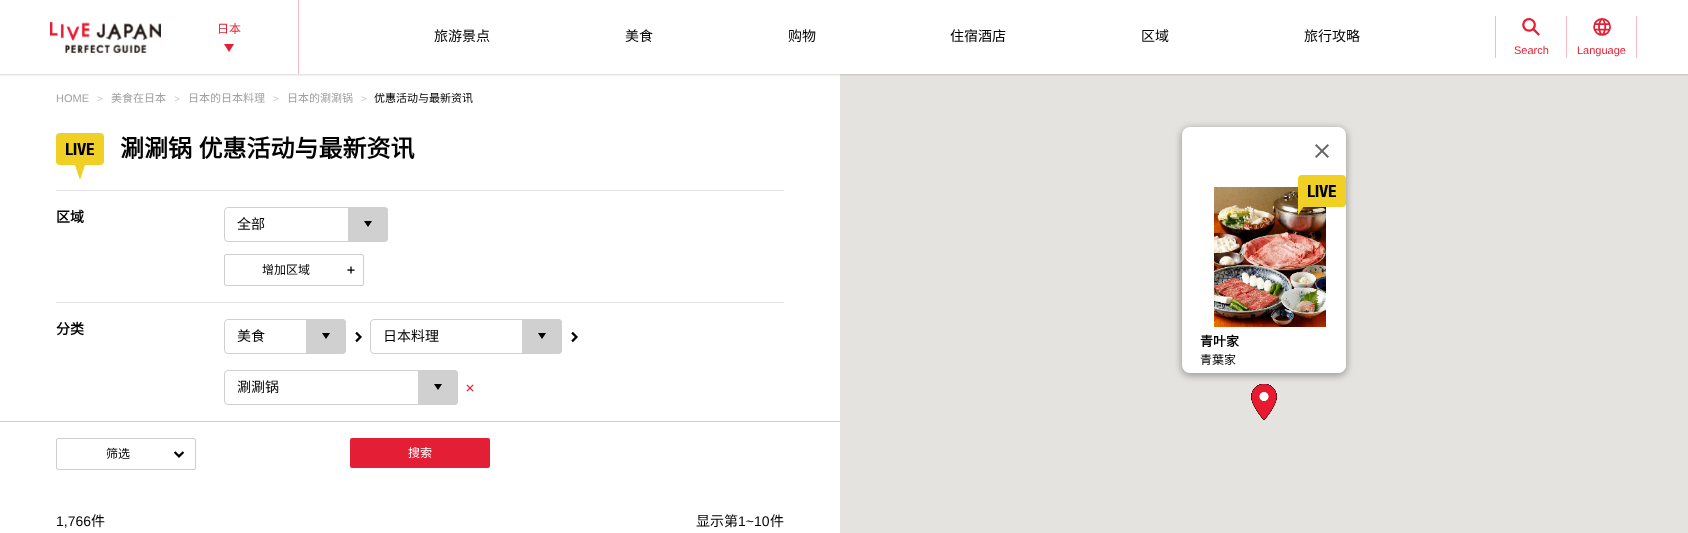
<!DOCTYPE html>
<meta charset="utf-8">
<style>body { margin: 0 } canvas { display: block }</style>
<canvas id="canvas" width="1688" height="533"></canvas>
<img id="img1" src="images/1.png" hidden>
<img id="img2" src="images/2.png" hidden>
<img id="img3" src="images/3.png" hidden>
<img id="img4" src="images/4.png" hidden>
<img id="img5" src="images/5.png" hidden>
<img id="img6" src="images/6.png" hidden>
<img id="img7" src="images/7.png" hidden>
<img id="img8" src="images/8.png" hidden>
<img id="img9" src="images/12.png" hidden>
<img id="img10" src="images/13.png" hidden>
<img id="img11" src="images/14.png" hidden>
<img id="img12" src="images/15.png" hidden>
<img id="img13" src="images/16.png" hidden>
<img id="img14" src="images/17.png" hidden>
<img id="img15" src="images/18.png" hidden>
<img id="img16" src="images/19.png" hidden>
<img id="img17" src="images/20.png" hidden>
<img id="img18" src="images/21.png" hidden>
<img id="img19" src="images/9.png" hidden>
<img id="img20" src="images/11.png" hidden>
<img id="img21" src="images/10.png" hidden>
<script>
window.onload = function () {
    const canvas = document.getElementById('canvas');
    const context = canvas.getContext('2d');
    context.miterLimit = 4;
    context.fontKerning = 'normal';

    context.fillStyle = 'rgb(255, 255, 255)';
    context.fillRect(0, 0, 1688, 533);
    context.fillStyle = 'rgb(229, 227, 223)';
    context.fillRect(840, 74, 848, 459);
    context.save();
    context.beginPath();
    context.rect(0, 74, 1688, 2);
    context.clip();
    context.fillStyle = 'rgba(50, 50, 50, 0.2)';
    context.filter = 'blur(1px)';
    context.beginPath();
    context.rect(-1, -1, 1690, 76);
    context.fill();
    context.filter = 'none';
    context.restore();
    context.drawImage(document.getElementById('img1'), 50, 21, 111, 32);
    context.fillStyle = 'rgb(228, 31, 53)';
    context.beginPath();
    context.moveTo(224, 44);
    context.lineTo(234, 44);
    context.lineTo(229, 52);
    context.closePath();
    context.fill();
    context.fillStyle = 'rgb(247, 187, 194)';
    context.fillRect(298, 0, 1, 74);
    context.fillRect(1495, 16, 1, 42);
    context.drawImage(document.getElementById('img2'), 1522, 18, 18, 18);
    context.fillRect(1636, 16, 1, 42);
    context.fillRect(1566, 16, 1, 42);
    context.drawImage(document.getElementById('img3'), 1593, 18, 18, 18);
    context.fillStyle = 'rgb(240, 208, 37)';
    context.beginPath();
    context.roundRect(56, 133, 48, 32, 4);
    context.fill();
    context.drawImage(document.getElementById('img4'), 66, 143, 28, 12);
    context.beginPath();
    context.moveTo(75, 165);
    context.lineTo(85, 165);
    context.lineTo(80, 180);
    context.closePath();
    context.fill();
    context.fillStyle = 'rgb(229, 229, 229)';
    context.fillRect(56, 190, 728, 1);
    context.fillRect(56, 302, 728, 1);
    context.fillStyle = 'rgb(208, 208, 208)';
    context.beginPath();
    context.roundRect(348, 207, 40, 35, [0, 4, 4, 0]);
    context.fill();
    context.fillStyle = 'rgb(0, 0, 0)';
    context.beginPath();
    context.moveTo(364, 221);
    context.lineTo(372, 221);
    context.lineTo(368, 227);
    context.closePath();
    context.fill();
    context.beginPath();
    context.roundRect(224.5, 207.5, 163, 34, 3.5);
    context.strokeStyle = 'rgb(208, 208, 208)';
    context.stroke();
    context.beginPath();
    context.roundRect(224.5, 254.5, 139, 31, 1.5);
    context.strokeStyle = 'rgb(207, 207, 207)';
    context.stroke();
    context.drawImage(document.getElementById('img5'), 347, 266, 8, 8);
    context.fillStyle = 'rgb(208, 208, 208)';
    context.beginPath();
    context.roundRect(306, 319, 40, 35, [0, 4, 4, 0]);
    context.fill();
    context.fillStyle = 'rgb(0, 0, 0)';
    context.beginPath();
    context.moveTo(322, 333);
    context.lineTo(330, 333);
    context.lineTo(326, 339);
    context.closePath();
    context.fill();
    context.beginPath();
    context.roundRect(224.5, 319.5, 121, 34, 3.5);
    context.strokeStyle = 'rgb(208, 208, 208)';
    context.stroke();
    context.drawImage(document.getElementById('img6'), 355, 332, 7, 11);
    context.fillStyle = 'rgb(208, 208, 208)';
    context.beginPath();
    context.roundRect(522, 319, 40, 35, [0, 4, 4, 0]);
    context.fill();
    context.fillStyle = 'rgb(0, 0, 0)';
    context.beginPath();
    context.moveTo(538, 333);
    context.lineTo(546, 333);
    context.lineTo(542, 339);
    context.closePath();
    context.fill();
    context.beginPath();
    context.roundRect(370.5, 319.5, 191, 34, 3.5);
    context.stroke();
    context.drawImage(document.getElementById('img6'), 571, 332, 7, 11);
    context.fillStyle = 'rgb(208, 208, 208)';
    context.beginPath();
    context.roundRect(418, 370, 40, 35, [0, 4, 4, 0]);
    context.fill();
    context.fillStyle = 'rgb(0, 0, 0)';
    context.beginPath();
    context.moveTo(434, 384);
    context.lineTo(442, 384);
    context.lineTo(438, 390);
    context.closePath();
    context.fill();
    context.beginPath();
    context.roundRect(224.5, 370.5, 233, 34, 3.5);
    context.stroke();
    context.drawImage(document.getElementById('img7'), 466, 384, 8, 8);
    context.fillStyle = 'rgb(207, 207, 207)';
    context.fillRect(0, 421, 840, 1);
    context.beginPath();
    context.roundRect(56.5, 438.5, 139, 31, 1.5);
    context.strokeStyle = 'rgb(207, 207, 207)';
    context.stroke();
    context.drawImage(document.getElementById('img8'), 173, 451, 11, 7);
    context.fillStyle = 'rgb(228, 31, 53)';
    context.beginPath();
    context.roundRect(350, 438, 140, 30, 2);
    context.fill();
    context.drawImage(document.getElementById('img9'), 1251, 384, 26, 36);
    context.drawImage(document.getElementById('img10'), 1251, 384, 26, 36);
    context.drawImage(document.getElementById('img11'), 1251, 384, 26, 36);
    context.drawImage(document.getElementById('img12'), 1251, 384, 26, 36);
    context.drawImage(document.getElementById('img13'), 1251, 384, 26, 36);
    context.drawImage(document.getElementById('img14'), 1251, 384, 26, 36);
    context.drawImage(document.getElementById('img15'), 1251, 384, 26, 35);
    context.drawImage(document.getElementById('img16'), 1251, 384, 26, 35);
    context.drawImage(document.getElementById('img17'), 1251, 384, 26, 35);
    context.drawImage(document.getElementById('img18'), 1251, 384, 26, 36);
    context.fillStyle = 'rgba(0, 0, 0, 0.3)';
    context.filter = 'blur(3.5px)';
    context.beginPath();
    context.roundRect(1181, 128, 166, 248, 9);
    context.fill();
    context.filter = 'none';
    context.fillStyle = 'rgb(255, 255, 255)';
    context.beginPath();
    context.roundRect(1182, 127, 164, 246, 8);
    context.fill();
    context.drawImage(document.getElementById('img19'), 1315, 144, 14, 14);
    context.beginPath();
    context.roundRect(1194, 175, 152, 198, [2, 2, 8, 2]);
    context.fill();
    context.drawImage(document.getElementById('img20'), 1214, 187, 112, 140);
    context.fillStyle = 'rgb(240, 208, 37)';
    context.beginPath();
    context.roundRect(1298, 175, 48, 32, 4);
    context.fill();
    context.drawImage(document.getElementById('img21'), 1308, 185, 28, 12);
    context.beginPath();
    context.moveTo(1298, 215);
    context.lineTo(1298, 203);
    context.lineTo(1306, 203);
    context.closePath();
    context.fill();
    context.font = '12px Noto Sans CJK SC';
    context.fillStyle = 'rgb(228, 31, 53)';
    context.fillText('日本', 217, 33);
    context.font = '14px Noto Sans CJK SC';
    context.fillStyle = 'rgb(0, 0, 0)';
    context.fillText('旅游景点', 434, 41);
    context.fillText('美食', 625, 41);
    context.fillText('购物', 788, 41);
    context.fillText('住宿酒店', 950, 41);
    context.fillText('区域', 1141, 41);
    context.fillText('旅行攻略', 1304, 41);
    context.font = '11px Liberation Sans';
    context.fillStyle = 'rgb(228, 31, 53)';
    context.fillText('Search', 1514, 54);
    context.fillText('Language', 1577, 54);
    context.fillStyle = 'rgb(160, 160, 160)';
    context.fillText('HOME', 56, 102);
    context.font = '10px Liberation Sans';
    context.fillStyle = 'rgb(204, 204, 204)';
    context.fillText('>', 97, 102);
    context.font = '11px Noto Sans CJK SC';
    context.fillStyle = 'rgb(160, 160, 160)';
    context.fillText('美食在日本', 111, 102);
    context.font = '10px Liberation Sans';
    context.fillStyle = 'rgb(204, 204, 204)';
    context.fillText('>', 174, 102);
    context.font = '11px Noto Sans CJK SC';
    context.fillStyle = 'rgb(160, 160, 160)';
    context.fillText('日本的日本料理', 188, 102);
    context.font = '10px Liberation Sans';
    context.fillStyle = 'rgb(204, 204, 204)';
    context.fillText('>', 273, 102);
    context.font = '11px Noto Sans CJK SC';
    context.fillStyle = 'rgb(160, 160, 160)';
    context.fillText('日本的涮涮锅', 287, 102);
    context.font = '10px Liberation Sans';
    context.fillStyle = 'rgb(204, 204, 204)';
    context.fillText('>', 361, 102);
    context.font = '11px Noto Sans CJK SC';
    context.fillStyle = 'rgb(0, 0, 0)';
    context.fillText('优惠活动与最新资讯', 374, 102);
    context.wordSpacing = '1px';
    context.font = 'bold 24px Noto Sans CJK SC';
    context.fillText('涮涮锅 优惠活动与最新资讯', 120, 157);
    context.wordSpacing = '0px';
    context.font = 'bold 14px Noto Sans CJK SC';
    context.fillText('区域', 56, 222);
    context.font = '14px Noto Sans CJK SC';
    context.fillText('全部', 237, 229);
    context.font = '12px Noto Sans CJK SC';
    context.fillText('增加区域', 262, 274);
    context.font = 'bold 14px Noto Sans CJK SC';
    context.fillText('分类', 56, 334);
    context.font = '14px Noto Sans CJK SC';
    context.fillText('美食', 237, 341);
    context.fillText('日本料理', 383, 341);
    context.fillText('涮涮锅', 237, 392);
    context.font = '12px Noto Sans CJK SC';
    context.fillText('筛选', 106, 458);
    context.fillStyle = 'rgb(255, 255, 255)';
    context.fillText('搜索', 408, 457);
    context.font = '14px Liberation Sans';
    context.fillStyle = 'rgb(0, 0, 0)';
    context.fillText('1,766', 56, 526);
    context.font = '14px Noto Sans CJK SC';
    context.fillText('件', 91, 526);
    context.fillText('显示第', 696, 526);
    context.font = '14px Liberation Sans';
    context.fillText('1~10', 738, 526);
    context.font = '14px Noto Sans CJK SC';
    context.fillText('件', 770, 526);
    context.font = 'bold 13px Noto Sans CJK SC';
    context.fillText('青叶家', 1200, 346);
    context.font = '12px Noto Sans CJK SC';
    context.fillText('青葉家', 1200, 364);
};
</script>
